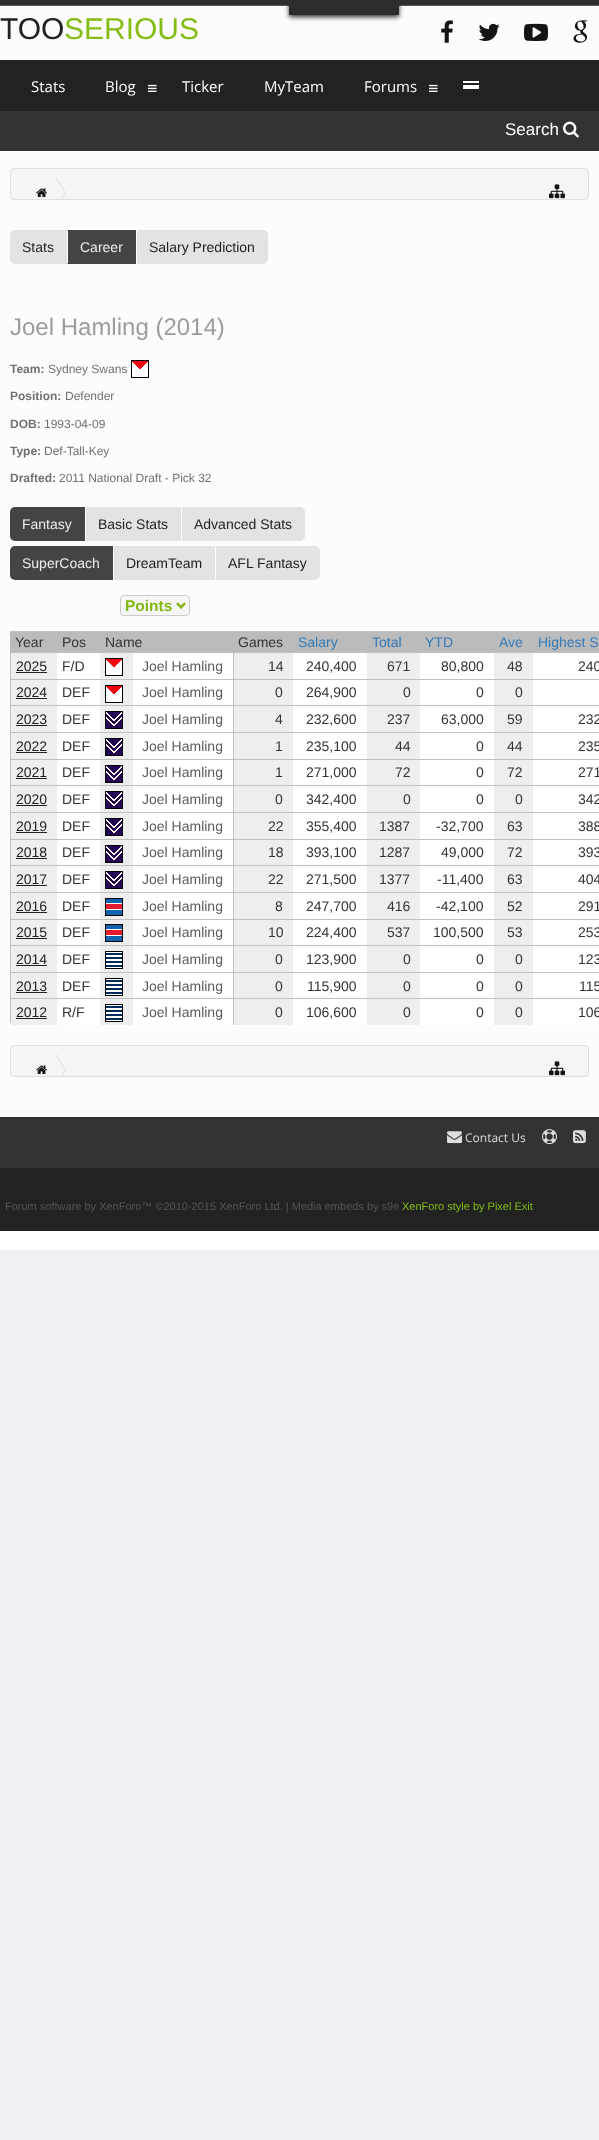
<!DOCTYPE html>
<meta charset="utf-8">
<style>body { margin: 0 } canvas { display: block }</style>
<canvas id="canvas" width="599" height="2140"></canvas>
<img id="img1" src="images/1.png" hidden>
<img id="img2" src="images/2.png" hidden>
<img id="img3" src="images/3.png" hidden>
<img id="img4" src="images/4.png" hidden>
<img id="img5" src="images/5.png" hidden>
<img id="img6" src="images/6.png" hidden>
<img id="img7" src="images/7.png" hidden>
<img id="img8" src="images/8.png" hidden>
<img id="img9" src="images/9.png" hidden>
<img id="img10" src="images/10.png" hidden>
<img id="img11" src="images/11.png" hidden>
<img id="img12" src="images/12.png" hidden>
<img id="img13" src="images/13.png" hidden>
<img id="img14" src="images/14.png" hidden>
<img id="img15" src="images/15.png" hidden>
<img id="img16" src="images/16.png" hidden>
<img id="img17" src="images/17.png" hidden>
<script>
window.onload = function () {
    const canvas = document.getElementById('canvas');
    const context = canvas.getContext('2d');
    context.miterLimit = 4;
    context.fontKerning = 'normal';

    context.fillStyle = 'rgb(238, 240, 244)';
    context.fillRect(0, 0, 599, 2140);
    context.fillStyle = 'rgb(255, 255, 255)';
    context.fillRect(0, 1231, 599, 19);
    context.fillStyle = 'rgb(45, 45, 45)';
    context.fillRect(0, 0, 599, 5);
    context.fillStyle = 'rgb(88, 88, 88)';
    context.fillRect(0, 5, 599, 1);
    context.fillStyle = 'rgb(252, 252, 255)';
    context.fillRect(0, 6, 599, 54);
    context.fillStyle = 'rgb(45, 45, 45)';
    context.filter = 'blur(2.5px)';
    context.beginPath();
    context.rect(289, -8, 110, 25);
    context.fill();
    context.filter = 'none';
    context.fillRect(289, 5, 110, 10);
    context.drawImage(document.getElementById('img1'), 441, 20, 12, 23);
    context.drawImage(document.getElementById('img2'), 478, 23, 22, 18);
    context.drawImage(document.getElementById('img3'), 524, 23, 24, 18);
    context.drawImage(document.getElementById('img4'), 573, 20, 15, 23);
    context.fillStyle = 'rgb(34, 34, 34)';
    context.fillRect(0, 60, 599, 51);
    context.drawImage(document.getElementById('img5'), 148, 84, 9, 8);
    context.drawImage(document.getElementById('img5'), 429, 84, 9, 8);
    context.fillStyle = 'rgb(255, 255, 255)';
    context.fillRect(463, 81, 16, 2);
    context.fillRect(463, 85, 16, 4);
    context.fillStyle = 'rgb(51, 51, 51)';
    context.fillRect(0, 111, 599, 40);
    context.drawImage(document.getElementById('img6'), 563, 121, 16, 17);
    context.fillStyle = 'rgb(252, 252, 255)';
    context.fillRect(0, 151, 599, 966);
    context.fillStyle = 'rgb(245, 245, 245)';
    context.beginPath();
    context.roundRect(10.5, 168.5, 578, 31, 3.5);
    context.fill();
    context.strokeStyle = 'rgb(222, 222, 222)';
    context.stroke();
    context.drawImage(document.getElementById('img7'), 36, 188, 11, 9);
    context.fillStyle = 'rgb(222, 222, 222)';
    context.beginPath();
    context.moveTo(62, 199);
    context.lineTo(56, 199);
    context.lineTo(56, 177);
    context.lineTo(66, 193);
    context.closePath();
    context.fill();
    context.fillStyle = 'rgb(245, 245, 245)';
    context.beginPath();
    context.moveTo(61, 199);
    context.lineTo(55, 199);
    context.lineTo(55, 177);
    context.lineTo(65, 193);
    context.closePath();
    context.fill();
    context.drawImage(document.getElementById('img8'), 549, 184, 16, 15);
    context.fillStyle = 'rgb(227, 227, 227)';
    context.beginPath();
    context.roundRect(10, 230, 57, 34, [5, 0, 0, 5]);
    context.fill();
    context.fillStyle = 'rgb(68, 68, 68)';
    context.fillRect(67, 230, 69, 34);
    context.fillStyle = 'rgb(255, 255, 255)';
    context.beginPath();
    context.moveTo(67, 264);
    context.lineTo(67, 230);
    context.lineTo(68, 231);
    context.lineTo(68, 263);
    context.closePath();
    context.fill();
    context.fillStyle = 'rgb(227, 227, 227)';
    context.beginPath();
    context.roundRect(136, 230, 132, 34, [0, 5, 5, 0]);
    context.fill();
    context.fillStyle = 'rgb(255, 255, 255)';
    context.beginPath();
    context.moveTo(136, 230);
    context.lineTo(136, 264);
    context.lineTo(137, 263);
    context.lineTo(137, 231);
    context.closePath();
    context.fill();
    context.strokeStyle = 'rgb(0, 0, 0)';
    context.strokeRect(131.5, 360.5, 17, 17);
    context.drawImage(document.getElementById('img9'), 132, 361, 16, 8);
    context.fillStyle = 'rgb(68, 68, 68)';
    context.beginPath();
    context.roundRect(10, 507, 75, 34, [5, 0, 0, 5]);
    context.fill();
    context.fillStyle = 'rgb(227, 227, 227)';
    context.fillRect(85, 507, 96, 34);
    context.fillStyle = 'rgb(255, 255, 255)';
    context.beginPath();
    context.moveTo(85, 541);
    context.lineTo(85, 507);
    context.lineTo(86, 508);
    context.lineTo(86, 540);
    context.closePath();
    context.fill();
    context.fillStyle = 'rgb(227, 227, 227)';
    context.beginPath();
    context.roundRect(181, 507, 124, 34, [0, 5, 5, 0]);
    context.fill();
    context.fillStyle = 'rgb(255, 255, 255)';
    context.beginPath();
    context.moveTo(181, 507);
    context.lineTo(181, 541);
    context.lineTo(182, 540);
    context.lineTo(182, 508);
    context.closePath();
    context.fill();
    context.fillStyle = 'rgb(68, 68, 68)';
    context.beginPath();
    context.roundRect(10, 546, 103, 34, [5, 0, 0, 5]);
    context.fill();
    context.fillStyle = 'rgb(227, 227, 227)';
    context.fillRect(113, 546, 102, 34);
    context.fillStyle = 'rgb(255, 255, 255)';
    context.beginPath();
    context.moveTo(113, 580);
    context.lineTo(113, 546);
    context.lineTo(114, 547);
    context.lineTo(114, 579);
    context.closePath();
    context.fill();
    context.fillStyle = 'rgb(227, 227, 227)';
    context.beginPath();
    context.roundRect(215, 546, 105, 34, [0, 5, 5, 0]);
    context.fill();
    context.fillStyle = 'rgb(255, 255, 255)';
    context.beginPath();
    context.moveTo(215, 546);
    context.lineTo(215, 580);
    context.lineTo(216, 579);
    context.lineTo(216, 547);
    context.closePath();
    context.fill();
    context.fillStyle = 'rgb(246, 246, 246)';
    context.beginPath();
    context.roundRect(120, 595, 70, 21, 4);
    context.fill();
    context.drawImage(document.getElementById('img10'), 176, 602, 10, 7);
    context.beginPath();
    context.roundRect(120.5, 595.5, 69, 20, 3.5);
    context.strokeStyle = 'rgb(204, 204, 204)';
    context.stroke();
    context.beginPath();
    context.moveTo(177, 603.5);
    context.lineTo(181, 607.5);
    context.lineTo(185, 603.5);
    context.strokeStyle = 'rgb(132, 183, 20)';
    context.lineWidth = 2;
    context.stroke();
    context.fillStyle = 'rgb(187, 187, 187)';
    context.fillRect(10, 632, 589, 20);
    context.fillStyle = 'rgb(192, 192, 192)';
    context.fillRect(10, 631, 589, 1);
    context.fillStyle = 'rgb(238, 238, 238)';
    context.fillRect(11, 653, 46, 26);
    context.fillStyle = 'rgb(192, 192, 192)';
    context.fillRect(10, 652, 589, 1);
    context.fillRect(10, 652, 1, 27);
    context.fillStyle = 'rgb(34, 34, 34)';
    context.fillRect(16, 672, 31, 1);
    context.fillStyle = 'rgb(255, 255, 255)';
    context.fillRect(57, 653, 43, 26);
    context.fillStyle = 'rgb(238, 238, 238)';
    context.fillRect(100, 653, 33, 26);
    context.strokeStyle = 'rgb(0, 0, 0)';
    context.lineWidth = 1;
    context.strokeRect(105.5, 658.5, 17, 17);
    context.drawImage(document.getElementById('img11'), 106, 659, 16, 16);
    context.fillStyle = 'rgb(255, 255, 255)';
    context.fillRect(133, 653, 100, 26);
    context.fillStyle = 'rgb(238, 238, 238)';
    context.fillRect(234, 653, 59, 26);
    context.fillStyle = 'rgb(192, 192, 192)';
    context.fillRect(233, 652, 1, 27);
    context.fillStyle = 'rgb(255, 255, 255)';
    context.fillRect(293, 653, 74, 26);
    context.fillStyle = 'rgb(238, 238, 238)';
    context.fillRect(367, 653, 53, 26);
    context.fillStyle = 'rgb(255, 255, 255)';
    context.fillRect(420, 653, 74, 26);
    context.fillStyle = 'rgb(238, 238, 238)';
    context.fillRect(494, 653, 39, 26);
    context.fillStyle = 'rgb(255, 255, 255)';
    context.fillRect(533, 653, 66, 26);
    context.fillStyle = 'rgb(238, 238, 238)';
    context.fillRect(11, 680, 46, 25);
    context.fillStyle = 'rgb(192, 192, 192)';
    context.fillRect(10, 679, 589, 1);
    context.fillRect(10, 679, 1, 26);
    context.fillStyle = 'rgb(34, 34, 34)';
    context.fillRect(16, 698, 31, 1);
    context.fillStyle = 'rgb(255, 255, 255)';
    context.fillRect(57, 680, 43, 25);
    context.fillStyle = 'rgb(238, 238, 238)';
    context.fillRect(100, 680, 33, 25);
    context.strokeRect(105.5, 685.5, 17, 17);
    context.drawImage(document.getElementById('img11'), 106, 686, 16, 16);
    context.fillStyle = 'rgb(255, 255, 255)';
    context.fillRect(133, 680, 100, 25);
    context.fillStyle = 'rgb(238, 238, 238)';
    context.fillRect(234, 680, 59, 25);
    context.fillStyle = 'rgb(192, 192, 192)';
    context.fillRect(233, 679, 1, 26);
    context.fillStyle = 'rgb(255, 255, 255)';
    context.fillRect(293, 680, 74, 25);
    context.fillStyle = 'rgb(238, 238, 238)';
    context.fillRect(367, 680, 53, 25);
    context.fillStyle = 'rgb(255, 255, 255)';
    context.fillRect(420, 680, 74, 25);
    context.fillStyle = 'rgb(238, 238, 238)';
    context.fillRect(494, 680, 39, 25);
    context.fillStyle = 'rgb(255, 255, 255)';
    context.fillRect(533, 680, 66, 25);
    context.fillStyle = 'rgb(238, 238, 238)';
    context.fillRect(11, 706, 46, 26);
    context.fillStyle = 'rgb(192, 192, 192)';
    context.fillRect(10, 705, 589, 1);
    context.fillRect(10, 705, 1, 27);
    context.fillStyle = 'rgb(34, 34, 34)';
    context.fillRect(16, 725, 31, 1);
    context.fillStyle = 'rgb(255, 255, 255)';
    context.fillRect(57, 706, 43, 26);
    context.fillStyle = 'rgb(238, 238, 238)';
    context.fillRect(100, 706, 33, 26);
    context.strokeRect(105.5, 711.5, 17, 17);
    context.drawImage(document.getElementById('img12'), 106, 712, 16, 16);
    context.fillStyle = 'rgb(255, 255, 255)';
    context.fillRect(133, 706, 100, 26);
    context.fillStyle = 'rgb(238, 238, 238)';
    context.fillRect(234, 706, 59, 26);
    context.fillStyle = 'rgb(192, 192, 192)';
    context.fillRect(233, 705, 1, 27);
    context.fillStyle = 'rgb(255, 255, 255)';
    context.fillRect(293, 706, 74, 26);
    context.fillStyle = 'rgb(238, 238, 238)';
    context.fillRect(367, 706, 53, 26);
    context.fillStyle = 'rgb(255, 255, 255)';
    context.fillRect(420, 706, 74, 26);
    context.fillStyle = 'rgb(238, 238, 238)';
    context.fillRect(494, 706, 39, 26);
    context.fillStyle = 'rgb(255, 255, 255)';
    context.fillRect(533, 706, 66, 26);
    context.fillStyle = 'rgb(238, 238, 238)';
    context.fillRect(11, 733, 46, 26);
    context.fillStyle = 'rgb(192, 192, 192)';
    context.fillRect(10, 732, 589, 1);
    context.fillRect(10, 732, 1, 27);
    context.fillStyle = 'rgb(34, 34, 34)';
    context.fillRect(16, 752, 31, 1);
    context.fillStyle = 'rgb(255, 255, 255)';
    context.fillRect(57, 733, 43, 26);
    context.fillStyle = 'rgb(238, 238, 238)';
    context.fillRect(100, 733, 33, 26);
    context.strokeRect(105.5, 738.5, 17, 17);
    context.drawImage(document.getElementById('img12'), 106, 739, 16, 16);
    context.fillStyle = 'rgb(255, 255, 255)';
    context.fillRect(133, 733, 100, 26);
    context.fillStyle = 'rgb(238, 238, 238)';
    context.fillRect(234, 733, 59, 26);
    context.fillStyle = 'rgb(192, 192, 192)';
    context.fillRect(233, 732, 1, 27);
    context.fillStyle = 'rgb(255, 255, 255)';
    context.fillRect(293, 733, 74, 26);
    context.fillStyle = 'rgb(238, 238, 238)';
    context.fillRect(367, 733, 53, 26);
    context.fillStyle = 'rgb(255, 255, 255)';
    context.fillRect(420, 733, 74, 26);
    context.fillStyle = 'rgb(238, 238, 238)';
    context.fillRect(494, 733, 39, 26);
    context.fillStyle = 'rgb(255, 255, 255)';
    context.fillRect(533, 733, 66, 26);
    context.fillStyle = 'rgb(238, 238, 238)';
    context.fillRect(11, 760, 46, 25);
    context.fillStyle = 'rgb(192, 192, 192)';
    context.fillRect(10, 759, 589, 1);
    context.fillRect(10, 759, 1, 26);
    context.fillStyle = 'rgb(34, 34, 34)';
    context.fillRect(16, 778, 31, 1);
    context.fillStyle = 'rgb(255, 255, 255)';
    context.fillRect(57, 760, 43, 25);
    context.fillStyle = 'rgb(238, 238, 238)';
    context.fillRect(100, 760, 33, 25);
    context.strokeRect(105.5, 765.5, 17, 17);
    context.drawImage(document.getElementById('img12'), 106, 766, 16, 16);
    context.fillStyle = 'rgb(255, 255, 255)';
    context.fillRect(133, 760, 100, 25);
    context.fillStyle = 'rgb(238, 238, 238)';
    context.fillRect(234, 760, 59, 25);
    context.fillStyle = 'rgb(192, 192, 192)';
    context.fillRect(233, 759, 1, 26);
    context.fillStyle = 'rgb(255, 255, 255)';
    context.fillRect(293, 760, 74, 25);
    context.fillStyle = 'rgb(238, 238, 238)';
    context.fillRect(367, 760, 53, 25);
    context.fillStyle = 'rgb(255, 255, 255)';
    context.fillRect(420, 760, 74, 25);
    context.fillStyle = 'rgb(238, 238, 238)';
    context.fillRect(494, 760, 39, 25);
    context.fillStyle = 'rgb(255, 255, 255)';
    context.fillRect(533, 760, 66, 25);
    context.fillStyle = 'rgb(238, 238, 238)';
    context.fillRect(11, 786, 46, 26);
    context.fillStyle = 'rgb(192, 192, 192)';
    context.fillRect(10, 785, 589, 1);
    context.fillRect(10, 785, 1, 27);
    context.fillStyle = 'rgb(34, 34, 34)';
    context.fillRect(16, 805, 31, 1);
    context.fillStyle = 'rgb(255, 255, 255)';
    context.fillRect(57, 786, 43, 26);
    context.fillStyle = 'rgb(238, 238, 238)';
    context.fillRect(100, 786, 33, 26);
    context.strokeRect(105.5, 791.5, 17, 17);
    context.drawImage(document.getElementById('img12'), 106, 792, 16, 16);
    context.fillStyle = 'rgb(255, 255, 255)';
    context.fillRect(133, 786, 100, 26);
    context.fillStyle = 'rgb(238, 238, 238)';
    context.fillRect(234, 786, 59, 26);
    context.fillStyle = 'rgb(192, 192, 192)';
    context.fillRect(233, 785, 1, 27);
    context.fillStyle = 'rgb(255, 255, 255)';
    context.fillRect(293, 786, 74, 26);
    context.fillStyle = 'rgb(238, 238, 238)';
    context.fillRect(367, 786, 53, 26);
    context.fillStyle = 'rgb(255, 255, 255)';
    context.fillRect(420, 786, 74, 26);
    context.fillStyle = 'rgb(238, 238, 238)';
    context.fillRect(494, 786, 39, 26);
    context.fillStyle = 'rgb(255, 255, 255)';
    context.fillRect(533, 786, 66, 26);
    context.fillStyle = 'rgb(238, 238, 238)';
    context.fillRect(11, 813, 46, 26);
    context.fillStyle = 'rgb(192, 192, 192)';
    context.fillRect(10, 812, 589, 1);
    context.fillRect(10, 812, 1, 27);
    context.fillStyle = 'rgb(34, 34, 34)';
    context.fillRect(16, 832, 31, 1);
    context.fillStyle = 'rgb(255, 255, 255)';
    context.fillRect(57, 813, 43, 26);
    context.fillStyle = 'rgb(238, 238, 238)';
    context.fillRect(100, 813, 33, 26);
    context.strokeRect(105.5, 818.5, 17, 17);
    context.drawImage(document.getElementById('img12'), 106, 819, 16, 16);
    context.fillStyle = 'rgb(255, 255, 255)';
    context.fillRect(133, 813, 100, 26);
    context.fillStyle = 'rgb(238, 238, 238)';
    context.fillRect(234, 813, 59, 26);
    context.fillStyle = 'rgb(192, 192, 192)';
    context.fillRect(233, 812, 1, 27);
    context.fillStyle = 'rgb(255, 255, 255)';
    context.fillRect(293, 813, 74, 26);
    context.fillStyle = 'rgb(238, 238, 238)';
    context.fillRect(367, 813, 53, 26);
    context.fillStyle = 'rgb(255, 255, 255)';
    context.fillRect(420, 813, 74, 26);
    context.fillStyle = 'rgb(238, 238, 238)';
    context.fillRect(494, 813, 39, 26);
    context.fillStyle = 'rgb(255, 255, 255)';
    context.fillRect(533, 813, 66, 26);
    context.fillStyle = 'rgb(238, 238, 238)';
    context.fillRect(11, 840, 46, 25);
    context.fillStyle = 'rgb(192, 192, 192)';
    context.fillRect(10, 839, 589, 1);
    context.fillRect(10, 839, 1, 26);
    context.fillStyle = 'rgb(34, 34, 34)';
    context.fillRect(16, 858, 31, 1);
    context.fillStyle = 'rgb(255, 255, 255)';
    context.fillRect(57, 840, 43, 25);
    context.fillStyle = 'rgb(238, 238, 238)';
    context.fillRect(100, 840, 33, 25);
    context.strokeRect(105.5, 845.5, 17, 17);
    context.drawImage(document.getElementById('img12'), 106, 846, 16, 16);
    context.fillStyle = 'rgb(255, 255, 255)';
    context.fillRect(133, 840, 100, 25);
    context.fillStyle = 'rgb(238, 238, 238)';
    context.fillRect(234, 840, 59, 25);
    context.fillStyle = 'rgb(192, 192, 192)';
    context.fillRect(233, 839, 1, 26);
    context.fillStyle = 'rgb(255, 255, 255)';
    context.fillRect(293, 840, 74, 25);
    context.fillStyle = 'rgb(238, 238, 238)';
    context.fillRect(367, 840, 53, 25);
    context.fillStyle = 'rgb(255, 255, 255)';
    context.fillRect(420, 840, 74, 25);
    context.fillStyle = 'rgb(238, 238, 238)';
    context.fillRect(494, 840, 39, 25);
    context.fillStyle = 'rgb(255, 255, 255)';
    context.fillRect(533, 840, 66, 25);
    context.fillStyle = 'rgb(238, 238, 238)';
    context.fillRect(11, 866, 46, 26);
    context.fillStyle = 'rgb(192, 192, 192)';
    context.fillRect(10, 865, 589, 1);
    context.fillRect(10, 865, 1, 27);
    context.fillStyle = 'rgb(34, 34, 34)';
    context.fillRect(16, 885, 31, 1);
    context.fillStyle = 'rgb(255, 255, 255)';
    context.fillRect(57, 866, 43, 26);
    context.fillStyle = 'rgb(238, 238, 238)';
    context.fillRect(100, 866, 33, 26);
    context.strokeRect(105.5, 871.5, 17, 17);
    context.drawImage(document.getElementById('img12'), 106, 872, 16, 16);
    context.fillStyle = 'rgb(255, 255, 255)';
    context.fillRect(133, 866, 100, 26);
    context.fillStyle = 'rgb(238, 238, 238)';
    context.fillRect(234, 866, 59, 26);
    context.fillStyle = 'rgb(192, 192, 192)';
    context.fillRect(233, 865, 1, 27);
    context.fillStyle = 'rgb(255, 255, 255)';
    context.fillRect(293, 866, 74, 26);
    context.fillStyle = 'rgb(238, 238, 238)';
    context.fillRect(367, 866, 53, 26);
    context.fillStyle = 'rgb(255, 255, 255)';
    context.fillRect(420, 866, 74, 26);
    context.fillStyle = 'rgb(238, 238, 238)';
    context.fillRect(494, 866, 39, 26);
    context.fillStyle = 'rgb(255, 255, 255)';
    context.fillRect(533, 866, 66, 26);
    context.fillStyle = 'rgb(238, 238, 238)';
    context.fillRect(11, 893, 46, 26);
    context.fillStyle = 'rgb(192, 192, 192)';
    context.fillRect(10, 892, 589, 1);
    context.fillRect(10, 892, 1, 27);
    context.fillStyle = 'rgb(34, 34, 34)';
    context.fillRect(16, 912, 31, 1);
    context.fillStyle = 'rgb(255, 255, 255)';
    context.fillRect(57, 893, 43, 26);
    context.fillStyle = 'rgb(238, 238, 238)';
    context.fillRect(100, 893, 33, 26);
    context.strokeRect(105.5, 898.5, 17, 17);
    context.drawImage(document.getElementById('img13'), 106, 899, 16, 16);
    context.fillStyle = 'rgb(255, 255, 255)';
    context.fillRect(133, 893, 100, 26);
    context.fillStyle = 'rgb(238, 238, 238)';
    context.fillRect(234, 893, 59, 26);
    context.fillStyle = 'rgb(192, 192, 192)';
    context.fillRect(233, 892, 1, 27);
    context.fillStyle = 'rgb(255, 255, 255)';
    context.fillRect(293, 893, 74, 26);
    context.fillStyle = 'rgb(238, 238, 238)';
    context.fillRect(367, 893, 53, 26);
    context.fillStyle = 'rgb(255, 255, 255)';
    context.fillRect(420, 893, 74, 26);
    context.fillStyle = 'rgb(238, 238, 238)';
    context.fillRect(494, 893, 39, 26);
    context.fillStyle = 'rgb(255, 255, 255)';
    context.fillRect(533, 893, 66, 26);
    context.fillStyle = 'rgb(238, 238, 238)';
    context.fillRect(11, 920, 46, 25);
    context.fillStyle = 'rgb(192, 192, 192)';
    context.fillRect(10, 919, 589, 1);
    context.fillRect(10, 919, 1, 26);
    context.fillStyle = 'rgb(34, 34, 34)';
    context.fillRect(16, 938, 31, 1);
    context.fillStyle = 'rgb(255, 255, 255)';
    context.fillRect(57, 920, 43, 25);
    context.fillStyle = 'rgb(238, 238, 238)';
    context.fillRect(100, 920, 33, 25);
    context.strokeRect(105.5, 924.5, 17, 17);
    context.drawImage(document.getElementById('img13'), 106, 925, 16, 16);
    context.fillStyle = 'rgb(255, 255, 255)';
    context.fillRect(133, 920, 100, 25);
    context.fillStyle = 'rgb(238, 238, 238)';
    context.fillRect(234, 920, 59, 25);
    context.fillStyle = 'rgb(192, 192, 192)';
    context.fillRect(233, 919, 1, 26);
    context.fillStyle = 'rgb(255, 255, 255)';
    context.fillRect(293, 920, 74, 25);
    context.fillStyle = 'rgb(238, 238, 238)';
    context.fillRect(367, 920, 53, 25);
    context.fillStyle = 'rgb(255, 255, 255)';
    context.fillRect(420, 920, 74, 25);
    context.fillStyle = 'rgb(238, 238, 238)';
    context.fillRect(494, 920, 39, 25);
    context.fillStyle = 'rgb(255, 255, 255)';
    context.fillRect(533, 920, 66, 25);
    context.fillStyle = 'rgb(238, 238, 238)';
    context.fillRect(11, 946, 46, 26);
    context.fillStyle = 'rgb(192, 192, 192)';
    context.fillRect(10, 945, 589, 1);
    context.fillRect(10, 945, 1, 27);
    context.fillStyle = 'rgb(34, 34, 34)';
    context.fillRect(16, 965, 31, 1);
    context.fillStyle = 'rgb(255, 255, 255)';
    context.fillRect(57, 946, 43, 26);
    context.fillStyle = 'rgb(238, 238, 238)';
    context.fillRect(100, 946, 33, 26);
    context.strokeRect(105.5, 951.5, 17, 17);
    context.drawImage(document.getElementById('img14'), 106, 952, 16, 16);
    context.fillStyle = 'rgb(255, 255, 255)';
    context.fillRect(133, 946, 100, 26);
    context.fillStyle = 'rgb(238, 238, 238)';
    context.fillRect(234, 946, 59, 26);
    context.fillStyle = 'rgb(192, 192, 192)';
    context.fillRect(233, 945, 1, 27);
    context.fillStyle = 'rgb(255, 255, 255)';
    context.fillRect(293, 946, 74, 26);
    context.fillStyle = 'rgb(238, 238, 238)';
    context.fillRect(367, 946, 53, 26);
    context.fillStyle = 'rgb(255, 255, 255)';
    context.fillRect(420, 946, 74, 26);
    context.fillStyle = 'rgb(238, 238, 238)';
    context.fillRect(494, 946, 39, 26);
    context.fillStyle = 'rgb(255, 255, 255)';
    context.fillRect(533, 946, 66, 26);
    context.fillStyle = 'rgb(238, 238, 238)';
    context.fillRect(11, 973, 46, 25);
    context.fillStyle = 'rgb(192, 192, 192)';
    context.fillRect(10, 972, 589, 1);
    context.fillRect(10, 972, 1, 26);
    context.fillStyle = 'rgb(34, 34, 34)';
    context.fillRect(16, 992, 31, 1);
    context.fillStyle = 'rgb(255, 255, 255)';
    context.fillRect(57, 973, 43, 25);
    context.fillStyle = 'rgb(238, 238, 238)';
    context.fillRect(100, 973, 33, 25);
    context.strokeRect(105.5, 978.5, 17, 17);
    context.drawImage(document.getElementById('img14'), 106, 979, 16, 16);
    context.fillStyle = 'rgb(255, 255, 255)';
    context.fillRect(133, 973, 100, 25);
    context.fillStyle = 'rgb(238, 238, 238)';
    context.fillRect(234, 973, 59, 25);
    context.fillStyle = 'rgb(192, 192, 192)';
    context.fillRect(233, 972, 1, 26);
    context.fillStyle = 'rgb(255, 255, 255)';
    context.fillRect(293, 973, 74, 25);
    context.fillStyle = 'rgb(238, 238, 238)';
    context.fillRect(367, 973, 53, 25);
    context.fillStyle = 'rgb(255, 255, 255)';
    context.fillRect(420, 973, 74, 25);
    context.fillStyle = 'rgb(238, 238, 238)';
    context.fillRect(494, 973, 39, 25);
    context.fillStyle = 'rgb(255, 255, 255)';
    context.fillRect(533, 973, 66, 25);
    context.fillStyle = 'rgb(238, 238, 238)';
    context.beginPath();
    context.roundRect(10, 998, 47, 27, [0, 0, 0, 4]);
    context.fill();
    context.fillStyle = 'rgb(192, 192, 192)';
    context.fillRect(10, 998, 589, 1);
    context.fillRect(10, 998, 1, 25);
    context.fillStyle = 'rgb(34, 34, 34)';
    context.fillRect(16, 1018, 31, 1);
    context.fillStyle = 'rgb(255, 255, 255)';
    context.fillRect(57, 999, 43, 26);
    context.fillStyle = 'rgb(238, 238, 238)';
    context.fillRect(100, 999, 33, 26);
    context.strokeRect(105.5, 1004.5, 17, 17);
    context.drawImage(document.getElementById('img14'), 106, 1005, 16, 16);
    context.fillStyle = 'rgb(255, 255, 255)';
    context.fillRect(133, 999, 100, 26);
    context.fillStyle = 'rgb(238, 238, 238)';
    context.fillRect(234, 999, 59, 26);
    context.fillStyle = 'rgb(192, 192, 192)';
    context.fillRect(233, 998, 1, 27);
    context.fillStyle = 'rgb(255, 255, 255)';
    context.fillRect(293, 999, 74, 26);
    context.fillStyle = 'rgb(238, 238, 238)';
    context.fillRect(367, 999, 53, 26);
    context.fillStyle = 'rgb(255, 255, 255)';
    context.fillRect(420, 999, 74, 26);
    context.fillStyle = 'rgb(238, 238, 238)';
    context.fillRect(494, 999, 39, 26);
    context.fillStyle = 'rgb(255, 255, 255)';
    context.fillRect(533, 999, 66, 26);
    context.fillStyle = 'rgb(245, 245, 245)';
    context.beginPath();
    context.roundRect(10.5, 1045.5, 578, 31, 3.5);
    context.fill();
    context.strokeStyle = 'rgb(222, 222, 222)';
    context.stroke();
    context.drawImage(document.getElementById('img7'), 36, 1065, 11, 9);
    context.fillStyle = 'rgb(222, 222, 222)';
    context.beginPath();
    context.moveTo(62, 1076);
    context.lineTo(56, 1076);
    context.lineTo(56, 1054);
    context.lineTo(66, 1070);
    context.closePath();
    context.fill();
    context.fillStyle = 'rgb(245, 245, 245)';
    context.beginPath();
    context.moveTo(61, 1076);
    context.lineTo(55, 1076);
    context.lineTo(55, 1054);
    context.lineTo(65, 1070);
    context.closePath();
    context.fill();
    context.drawImage(document.getElementById('img8'), 549, 1061, 16, 15);
    context.fillStyle = 'rgb(51, 51, 51)';
    context.fillRect(0, 1117, 599, 51);
    context.drawImage(document.getElementById('img15'), 447, 1131, 15, 13);
    context.drawImage(document.getElementById('img16'), 542, 1129, 15, 16);
    context.drawImage(document.getElementById('img17'), 573, 1130, 13, 14);
    context.fillStyle = 'rgb(34, 34, 34)';
    context.fillRect(0, 1168, 599, 63);
    context.font = '30px Liberation Sans';
    context.fillText('TOO', 0, 39);
    context.fillStyle = 'rgb(133, 189, 20)';
    context.fillText('SERIOUS', 64, 39);
    context.font = '15px Open Sans';
    context.fillStyle = 'rgb(255, 255, 255)';
    context.fillText('Stats', 31, 92);
    context.fillText('Blog', 105, 92);
    context.fillText('Ticker', 182, 92);
    context.fillText('MyTeam', 264, 92);
    context.fillText('Forums', 364, 92);
    context.font = '17px Liberation Sans';
    context.fillText('Search', 505, 135);
    context.font = '14px Liberation Sans';
    context.fillStyle = 'rgb(34, 34, 34)';
    context.fillText('Stats', 22, 252);
    context.fillStyle = 'rgb(238, 238, 238)';
    context.fillText('Career', 80, 252);
    context.fillStyle = 'rgb(34, 34, 34)';
    context.fillText('Salary Prediction', 149, 252);
    context.font = '24px Liberation Sans';
    context.fillStyle = 'rgb(156, 156, 156)';
    context.fillText('Joel Hamling (2014)', 10, 335);
    context.font = 'bold 12px Liberation Sans';
    context.fillStyle = 'rgb(113, 113, 113)';
    context.fillText('Team:', 10, 373);
    context.font = '12px Liberation Sans';
    context.fillText('Sydney Swans', 48, 373);
    context.font = 'bold 12px Liberation Sans';
    context.fillText('Position:', 10, 400);
    context.font = '12px Liberation Sans';
    context.fillText('Defender', 65, 400);
    context.font = 'bold 12px Liberation Sans';
    context.fillText('DOB:', 10, 428);
    context.font = '12px Liberation Sans';
    context.fillText('1993-04-09', 44, 428);
    context.font = 'bold 12px Liberation Sans';
    context.fillText('Type:', 10, 455);
    context.font = '12px Liberation Sans';
    context.fillText('Def-Tall-Key', 44, 455);
    context.font = 'bold 12px Liberation Sans';
    context.fillText('Drafted:', 10, 482);
    context.font = '12px Liberation Sans';
    context.fillText('2011 National Draft - Pick 32', 59, 482);
    context.font = '14px Liberation Sans';
    context.fillStyle = 'rgb(238, 238, 238)';
    context.fillText('Fantasy', 22, 529);
    context.fillStyle = 'rgb(34, 34, 34)';
    context.fillText('Basic Stats', 98, 529);
    context.fillText('Advanced Stats', 194, 529);
    context.fillStyle = 'rgb(238, 238, 238)';
    context.fillText('SuperCoach', 22, 568);
    context.fillStyle = 'rgb(34, 34, 34)';
    context.fillText('DreamTeam', 126, 568);
    context.fillText('AFL Fantasy', 228, 568);
    context.font = 'bold 15.5px Liberation Sans';
    context.fillStyle = 'rgb(132, 183, 20)';
    context.fillText('Points', 125, 611);
    context.font = '14px Liberation Sans';
    context.fillStyle = 'rgb(51, 51, 51)';
    context.fillText('Year', 15, 647);
    context.fillText('Pos', 62, 647);
    context.fillText('Name', 105, 647);
    context.fillText('Games', 238, 647);
    context.fillStyle = 'rgb(51, 122, 183)';
    context.fillText('Salary', 298, 647);
    context.fillText('Total', 372, 647);
    context.fillText('YTD', 425, 647);
    context.fillText('Ave', 499, 647);
    context.fillText('Highest S', 538, 647);
    context.fillStyle = 'rgb(34, 34, 34)';
    context.fillText('2025', 16, 671);
    context.fillStyle = 'rgb(51, 51, 51)';
    context.fillText('F/D', 62, 671);
    context.fillStyle = 'rgb(92, 92, 92)';
    context.fillText('Joel Hamling', 142, 671);
    context.fillStyle = 'rgb(51, 51, 51)';
    context.fillText('14', 268, 671);
    context.fillText('240,400', 306, 671);
    context.fillText('671', 387, 671);
    context.fillText('80,800', 441, 671);
    context.fillText('48', 507, 671);
    context.fillText('240', 578, 671);
    context.fillStyle = 'rgb(34, 34, 34)';
    context.fillText('2024', 16, 697);
    context.fillStyle = 'rgb(51, 51, 51)';
    context.fillText('DEF', 62, 697);
    context.fillStyle = 'rgb(92, 92, 92)';
    context.fillText('Joel Hamling', 142, 697);
    context.fillStyle = 'rgb(51, 51, 51)';
    context.fillText('0', 275, 697);
    context.fillText('264,900', 306, 697);
    context.fillText('0', 403, 697);
    context.fillText('0', 476, 697);
    context.fillText('0', 515, 697);
    context.fillStyle = 'rgb(34, 34, 34)';
    context.fillText('2023', 16, 724);
    context.fillStyle = 'rgb(51, 51, 51)';
    context.fillText('DEF', 62, 724);
    context.fillStyle = 'rgb(92, 92, 92)';
    context.fillText('Joel Hamling', 142, 724);
    context.fillStyle = 'rgb(51, 51, 51)';
    context.fillText('4', 275, 724);
    context.fillText('232,600', 306, 724);
    context.fillText('237', 387, 724);
    context.fillText('63,000', 441, 724);
    context.fillText('59', 507, 724);
    context.fillText('232', 578, 724);
    context.fillStyle = 'rgb(34, 34, 34)';
    context.fillText('2022', 16, 751);
    context.fillStyle = 'rgb(51, 51, 51)';
    context.fillText('DEF', 62, 751);
    context.fillStyle = 'rgb(92, 92, 92)';
    context.fillText('Joel Hamling', 142, 751);
    context.fillStyle = 'rgb(51, 51, 51)';
    context.fillText('1', 275, 751);
    context.fillText('235,100', 306, 751);
    context.fillText('44', 395, 751);
    context.fillText('0', 476, 751);
    context.fillText('44', 507, 751);
    context.fillText('235', 578, 751);
    context.fillStyle = 'rgb(34, 34, 34)';
    context.fillText('2021', 16, 777);
    context.fillStyle = 'rgb(51, 51, 51)';
    context.fillText('DEF', 62, 777);
    context.fillStyle = 'rgb(92, 92, 92)';
    context.fillText('Joel Hamling', 142, 777);
    context.fillStyle = 'rgb(51, 51, 51)';
    context.fillText('1', 275, 777);
    context.fillText('271,000', 306, 777);
    context.fillText('72', 395, 777);
    context.fillText('0', 476, 777);
    context.fillText('72', 507, 777);
    context.fillText('271', 578, 777);
    context.fillStyle = 'rgb(34, 34, 34)';
    context.fillText('2020', 16, 804);
    context.fillStyle = 'rgb(51, 51, 51)';
    context.fillText('DEF', 62, 804);
    context.fillStyle = 'rgb(92, 92, 92)';
    context.fillText('Joel Hamling', 142, 804);
    context.fillStyle = 'rgb(51, 51, 51)';
    context.fillText('0', 275, 804);
    context.fillText('342,400', 306, 804);
    context.fillText('0', 403, 804);
    context.fillText('0', 476, 804);
    context.fillText('0', 515, 804);
    context.fillText('342', 578, 804);
    context.fillStyle = 'rgb(34, 34, 34)';
    context.fillText('2019', 16, 831);
    context.fillStyle = 'rgb(51, 51, 51)';
    context.fillText('DEF', 62, 831);
    context.fillStyle = 'rgb(92, 92, 92)';
    context.fillText('Joel Hamling', 142, 831);
    context.fillStyle = 'rgb(51, 51, 51)';
    context.fillText('22', 268, 831);
    context.fillText('355,400', 306, 831);
    context.fillText('1387', 379, 831);
    context.fillText('-32,700', 436, 831);
    context.fillText('63', 507, 831);
    context.fillText('388', 578, 831);
    context.fillStyle = 'rgb(34, 34, 34)';
    context.fillText('2018', 16, 857);
    context.fillStyle = 'rgb(51, 51, 51)';
    context.fillText('DEF', 62, 857);
    context.fillStyle = 'rgb(92, 92, 92)';
    context.fillText('Joel Hamling', 142, 857);
    context.fillStyle = 'rgb(51, 51, 51)';
    context.fillText('18', 268, 857);
    context.fillText('393,100', 306, 857);
    context.fillText('1287', 379, 857);
    context.fillText('49,000', 441, 857);
    context.fillText('72', 507, 857);
    context.fillText('393', 578, 857);
    context.fillStyle = 'rgb(34, 34, 34)';
    context.fillText('2017', 16, 884);
    context.fillStyle = 'rgb(51, 51, 51)';
    context.fillText('DEF', 62, 884);
    context.fillStyle = 'rgb(92, 92, 92)';
    context.fillText('Joel Hamling', 142, 884);
    context.fillStyle = 'rgb(51, 51, 51)';
    context.fillText('22', 268, 884);
    context.fillText('271,500', 306, 884);
    context.fillText('1377', 379, 884);
    context.fillText('-11,400', 437, 884);
    context.fillText('63', 507, 884);
    context.fillText('404', 578, 884);
    context.fillStyle = 'rgb(34, 34, 34)';
    context.fillText('2016', 16, 911);
    context.fillStyle = 'rgb(51, 51, 51)';
    context.fillText('DEF', 62, 911);
    context.fillStyle = 'rgb(92, 92, 92)';
    context.fillText('Joel Hamling', 142, 911);
    context.fillStyle = 'rgb(51, 51, 51)';
    context.fillText('8', 275, 911);
    context.fillText('247,700', 306, 911);
    context.fillText('416', 387, 911);
    context.fillText('-42,100', 436, 911);
    context.fillText('52', 507, 911);
    context.fillText('291', 578, 911);
    context.fillStyle = 'rgb(34, 34, 34)';
    context.fillText('2015', 16, 937);
    context.fillStyle = 'rgb(51, 51, 51)';
    context.fillText('DEF', 62, 937);
    context.fillStyle = 'rgb(92, 92, 92)';
    context.fillText('Joel Hamling', 142, 937);
    context.fillStyle = 'rgb(51, 51, 51)';
    context.fillText('10', 268, 937);
    context.fillText('224,400', 306, 937);
    context.fillText('537', 387, 937);
    context.fillText('100,500', 433, 937);
    context.fillText('53', 507, 937);
    context.fillText('253', 578, 937);
    context.fillStyle = 'rgb(34, 34, 34)';
    context.fillText('2014', 16, 964);
    context.fillStyle = 'rgb(51, 51, 51)';
    context.fillText('DEF', 62, 964);
    context.fillStyle = 'rgb(92, 92, 92)';
    context.fillText('Joel Hamling', 142, 964);
    context.fillStyle = 'rgb(51, 51, 51)';
    context.fillText('0', 275, 964);
    context.fillText('123,900', 306, 964);
    context.fillText('0', 403, 964);
    context.fillText('0', 476, 964);
    context.fillText('0', 515, 964);
    context.fillText('123', 578, 964);
    context.fillStyle = 'rgb(34, 34, 34)';
    context.fillText('2013', 16, 991);
    context.fillStyle = 'rgb(51, 51, 51)';
    context.fillText('DEF', 62, 991);
    context.fillStyle = 'rgb(92, 92, 92)';
    context.fillText('Joel Hamling', 142, 991);
    context.fillStyle = 'rgb(51, 51, 51)';
    context.fillText('0', 275, 991);
    context.fillText('115,900', 307, 991);
    context.fillText('0', 403, 991);
    context.fillText('0', 476, 991);
    context.fillText('0', 515, 991);
    context.fillText('115', 579, 991);
    context.fillStyle = 'rgb(34, 34, 34)';
    context.fillText('2012', 16, 1017);
    context.fillStyle = 'rgb(51, 51, 51)';
    context.fillText('R/F', 62, 1017);
    context.fillStyle = 'rgb(92, 92, 92)';
    context.fillText('Joel Hamling', 142, 1017);
    context.fillStyle = 'rgb(51, 51, 51)';
    context.fillText('0', 275, 1017);
    context.fillText('106,600', 306, 1017);
    context.fillText('0', 403, 1017);
    context.fillText('0', 476, 1017);
    context.fillText('0', 515, 1017);
    context.fillText('106', 578, 1017);
    context.font = '12px Open Sans';
    context.fillStyle = 'rgb(222, 222, 222)';
    context.fillText('Contact Us', 465, 1142);
    context.font = '11px Liberation Sans';
    context.fillStyle = 'rgb(86, 86, 86)';
    context.fillText('Forum software by XenForo™ ©2010-2015 XenForo Ltd. | Media embeds by s9e', 5, 1210);
    context.fillStyle = 'rgb(133, 189, 20)';
    context.fillText('XenForo style by Pixel Exit', 402, 1210);
};
</script>
